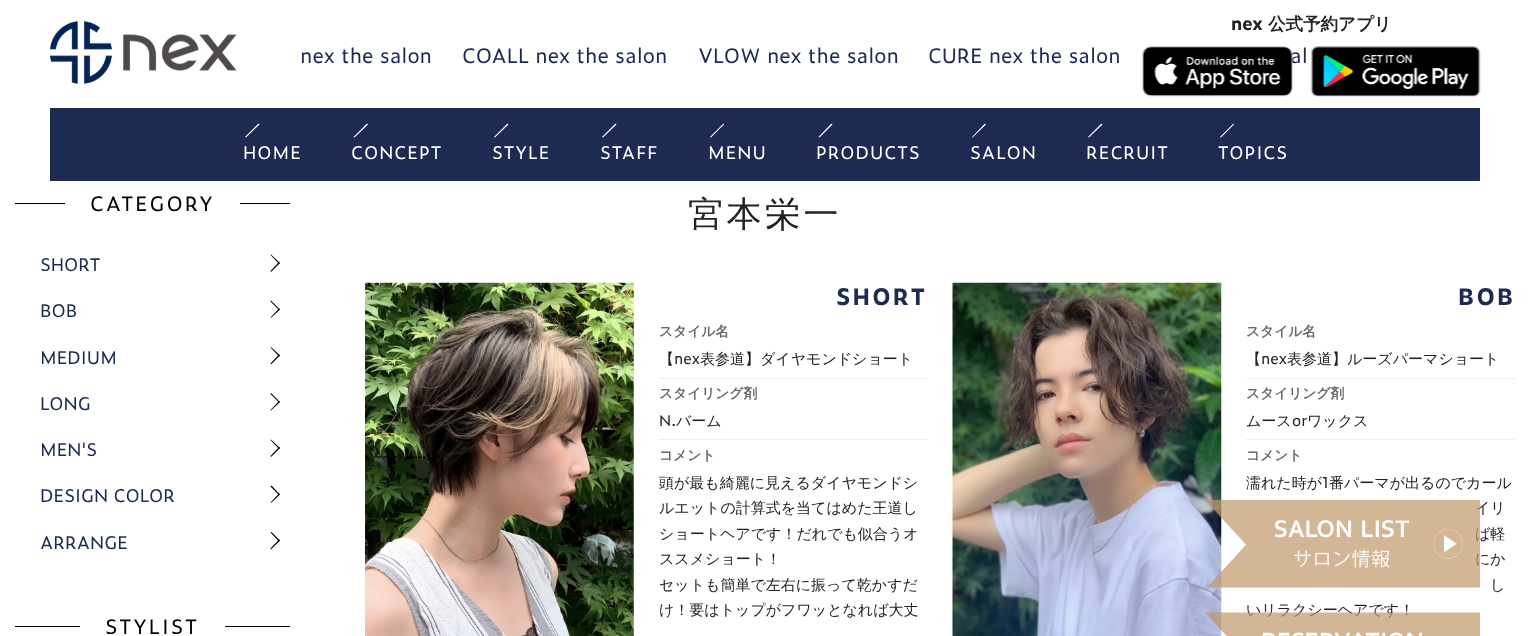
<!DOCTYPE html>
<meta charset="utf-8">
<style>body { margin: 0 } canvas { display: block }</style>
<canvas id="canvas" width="1529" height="636"></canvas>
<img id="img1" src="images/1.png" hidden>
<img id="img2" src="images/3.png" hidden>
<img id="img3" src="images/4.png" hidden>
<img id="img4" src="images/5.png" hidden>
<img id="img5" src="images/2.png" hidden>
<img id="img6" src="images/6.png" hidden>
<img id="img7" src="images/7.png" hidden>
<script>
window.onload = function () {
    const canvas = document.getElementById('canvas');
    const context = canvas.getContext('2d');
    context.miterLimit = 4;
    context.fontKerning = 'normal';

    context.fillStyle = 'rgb(255, 255, 255)';
    context.fillRect(0, 0, 1529, 636);
    context.drawImage(document.getElementById('img1'), 50, 21, 187, 63);
    context.drawImage(document.getElementById('img2'), 1310, 46, 171, 51);
    context.fillStyle = 'rgb(29, 43, 83)';
    context.fillRect(50, 108, 1430, 73);
    context.fillStyle = 'rgb(255, 255, 255)';
    context.beginPath();
    context.moveTo(245, 137);
    context.lineTo(258.5, 123.5);
    context.lineTo(259.5, 124.5);
    context.lineTo(246, 137.5);
    context.closePath();
    context.fill();
    context.beginPath();
    context.moveTo(353.5, 137);
    context.lineTo(367, 123.5);
    context.lineTo(368, 124.5);
    context.lineTo(354.5, 137.5);
    context.closePath();
    context.fill();
    context.beginPath();
    context.moveTo(494, 137);
    context.lineTo(507.5, 123.5);
    context.lineTo(508.5, 124.5);
    context.lineTo(495, 137.5);
    context.closePath();
    context.fill();
    context.beginPath();
    context.moveTo(602, 137);
    context.lineTo(615.5, 123.5);
    context.lineTo(616.5, 124.5);
    context.lineTo(603, 137.5);
    context.closePath();
    context.fill();
    context.beginPath();
    context.moveTo(710, 137);
    context.lineTo(723.5, 123.5);
    context.lineTo(724, 124.5);
    context.lineTo(711, 137.5);
    context.closePath();
    context.fill();
    context.beginPath();
    context.moveTo(818.5, 137);
    context.lineTo(831.5, 123.5);
    context.lineTo(832.5, 124.5);
    context.lineTo(819.5, 137.5);
    context.closePath();
    context.fill();
    context.beginPath();
    context.moveTo(972, 137);
    context.lineTo(985, 123.5);
    context.lineTo(986, 124.5);
    context.lineTo(972.5, 137.5);
    context.closePath();
    context.fill();
    context.beginPath();
    context.moveTo(1088, 137);
    context.lineTo(1101.5, 123.5);
    context.lineTo(1102.5, 124.5);
    context.lineTo(1089, 137.5);
    context.closePath();
    context.fill();
    context.beginPath();
    context.moveTo(1220, 137);
    context.lineTo(1233.5, 123.5);
    context.lineTo(1234, 124.5);
    context.lineTo(1221, 137.5);
    context.closePath();
    context.fill();
    context.fillStyle = 'rgb(0, 0, 0)';
    context.fillRect(15, 203, 275, 1);
    context.fillStyle = 'rgb(255, 255, 255)';
    context.fillRect(65, 203, 175, 1);
    context.fillStyle = 'rgb(0, 0, 0)';
    context.beginPath();
    context.moveTo(271, 254.5);
    context.lineTo(280, 263);
    context.lineTo(279, 264);
    context.lineTo(270.5, 255);
    context.closePath();
    context.fill();
    context.beginPath();
    context.moveTo(279, 262);
    context.lineTo(280, 263);
    context.lineTo(271, 272);
    context.lineTo(270.5, 271);
    context.closePath();
    context.fill();
    context.beginPath();
    context.moveTo(271, 300.5);
    context.lineTo(280, 309.5);
    context.lineTo(279, 310);
    context.lineTo(270.5, 301.5);
    context.closePath();
    context.fill();
    context.beginPath();
    context.moveTo(279, 308.5);
    context.lineTo(280, 309.5);
    context.lineTo(271, 318);
    context.lineTo(270.5, 317.5);
    context.closePath();
    context.fill();
    context.beginPath();
    context.moveTo(271, 347);
    context.lineTo(280, 355.5);
    context.lineTo(279, 356.5);
    context.lineTo(270.5, 347.5);
    context.closePath();
    context.fill();
    context.beginPath();
    context.moveTo(279, 354.5);
    context.lineTo(280, 355.5);
    context.lineTo(271, 364.5);
    context.lineTo(270.5, 363.5);
    context.closePath();
    context.fill();
    context.beginPath();
    context.moveTo(271, 393);
    context.lineTo(280, 402);
    context.lineTo(279, 402.5);
    context.lineTo(270.5, 394);
    context.closePath();
    context.fill();
    context.beginPath();
    context.moveTo(279, 401);
    context.lineTo(280, 402);
    context.lineTo(271, 410.5);
    context.lineTo(270.5, 410);
    context.closePath();
    context.fill();
    context.beginPath();
    context.moveTo(271, 439.5);
    context.lineTo(280, 448);
    context.lineTo(279, 449);
    context.lineTo(270.5, 440);
    context.closePath();
    context.fill();
    context.beginPath();
    context.moveTo(279, 447);
    context.lineTo(280, 448);
    context.lineTo(271, 457);
    context.lineTo(270.5, 456);
    context.closePath();
    context.fill();
    context.beginPath();
    context.moveTo(271.5, 485.5);
    context.lineTo(280, 494.5);
    context.lineTo(279, 495);
    context.lineTo(270.5, 486.5);
    context.closePath();
    context.fill();
    context.beginPath();
    context.moveTo(279, 493.5);
    context.lineTo(280, 494.5);
    context.lineTo(271, 503);
    context.lineTo(270.5, 502.5);
    context.closePath();
    context.fill();
    context.beginPath();
    context.moveTo(271.5, 532);
    context.lineTo(280, 540.5);
    context.lineTo(279, 541.5);
    context.lineTo(270.5, 532.5);
    context.closePath();
    context.fill();
    context.beginPath();
    context.moveTo(279, 539.5);
    context.lineTo(280, 540.5);
    context.lineTo(271, 549.5);
    context.lineTo(270.5, 548.5);
    context.closePath();
    context.fill();
    context.fillRect(15, 626, 275, 1);
    context.fillStyle = 'rgb(255, 255, 255)';
    context.fillRect(80, 626, 145, 1);
    context.drawImage(document.getElementById('img3'), 365, 282, 269, 354);
    context.fillStyle = 'rgb(238, 238, 238)';
    context.fillRect(659, 378, 269, 1);
    context.fillRect(659, 439, 269, 1);
    context.drawImage(document.getElementById('img4'), 952, 282, 270, 354);
    context.fillRect(1246, 378, 269, 1);
    context.fillRect(1246, 439, 269, 1);
    context.font = 'bold 17.5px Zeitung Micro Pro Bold';
    context.fillStyle = 'rgb(34, 34, 34)';
    context.fillText('nex', 1231, 30);
    context.font = 'bold 17.5px WenQuanYi Zen Hei';
    context.fillText('公式予約アプリ', 1268, 30);
    context.font = '20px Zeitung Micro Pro';
    context.fillStyle = 'rgb(29, 43, 83)';
    context.fillText('nex the salon', 300, 63);
    context.fillText('COALL nex the salon', 462, 63);
    context.fillText('VLOW nex the salon', 698, 63);
    context.fillText('CURE nex the salon', 928, 63);
    context.fillText('al', 1290, 63);
    context.drawImage(document.getElementById('img5'), 1142, 46, 151, 51);
    context.letterSpacing = '1px';
    context.font = '17.5px Zeitung Micro Pro';
    context.fillStyle = 'rgb(255, 255, 255)';
    context.fillText('HOME', 243, 159);
    context.fillText('CONCEPT', 351, 159);
    context.fillText('STYLE', 492, 159);
    context.fillText('STAFF', 600, 159);
    context.fillText('MENU', 708, 159);
    context.fillText('PRODUCTS', 816, 159);
    context.fillText('SALON', 970, 159);
    context.fillText('RECRUIT', 1086, 159);
    context.fillText('TOPICS', 1218, 159);
    context.letterSpacing = '2px';
    context.font = '20px Zeitung Micro Pro';
    context.fillStyle = 'rgb(0, 0, 0)';
    context.fillText('CATEGORY', 90, 211);
    context.letterSpacing = '0px';
    context.font = '17.5px Zeitung Micro Pro';
    context.fillStyle = 'rgb(29, 43, 83)';
    context.fillText('SHORT', 40, 271);
    context.fillText('BOB', 40, 317);
    context.fillText('MEDIUM', 40, 364);
    context.fillText('LONG', 40, 410);
    context.fillText('MEN\'S', 40, 456);
    context.fillText('DESIGN COLOR', 40, 502);
    context.fillText('ARRANGE', 40, 549);
    context.letterSpacing = '2px';
    context.font = '20px Zeitung Micro Pro';
    context.fillStyle = 'rgb(0, 0, 0)';
    context.fillText('STYLIST', 105, 634);
    context.letterSpacing = '3.5px';
    context.font = '500 35px WenQuanYi Zen Hei';
    context.fillStyle = 'rgb(34, 34, 34)';
    context.fillText('宮本栄一', 688, 226);
    context.letterSpacing = '2.25px';
    context.font = 'bold 22.5px Zeitung Micro Pro Bold';
    context.fillStyle = 'rgb(29, 43, 83)';
    context.fillText('SHORT', 836, 305);
    context.letterSpacing = '0px';
    context.font = 'bold 13.75px WenQuanYi Zen Hei';
    context.fillStyle = 'rgb(102, 102, 102)';
    context.fillText('スタイル名', 659, 336);
    context.font = '500 15px WenQuanYi Zen Hei';
    context.fillStyle = 'rgb(34, 34, 34)';
    context.fillText('【', 659, 364);
    context.font = '15px Zeitung Micro Pro';
    context.fillText('nex', 674, 364);
    context.font = '500 15px WenQuanYi Zen Hei';
    context.fillText('表参道】ダイヤモンドショート', 700, 364);
    context.font = 'bold 13.75px WenQuanYi Zen Hei';
    context.fillStyle = 'rgb(102, 102, 102)';
    context.fillText('スタイリング剤', 659, 398);
    context.font = '15px Zeitung Micro Pro';
    context.fillStyle = 'rgb(34, 34, 34)';
    context.fillText('N.', 659, 426);
    context.font = '500 15px WenQuanYi Zen Hei';
    context.fillText('バーム', 676, 426);
    context.font = 'bold 13.75px WenQuanYi Zen Hei';
    context.fillStyle = 'rgb(102, 102, 102)';
    context.fillText('コメント', 659, 460);
    context.font = '500 15px WenQuanYi Zen Hei';
    context.fillStyle = 'rgb(34, 34, 34)';
    context.fillText('頭が最も綺麗に見えるダイヤモンドシ', 659, 488);
    context.fillText('ルエットの計算式を当てはめた王道し', 659, 513);
    context.fillText('ショートヘアです！だれでも似合うオ', 659, 539);
    context.fillText('ススメショート！', 659, 564);
    context.fillText('セットも簡単で左右に振って乾かすだ', 659, 590);
    context.fillText('け！要はトップがフワッとなれば大丈', 659, 615);
    context.letterSpacing = '2.25px';
    context.font = 'bold 22.5px Zeitung Micro Pro Bold';
    context.fillStyle = 'rgb(29, 43, 83)';
    context.fillText('BOB', 1458, 305);
    context.letterSpacing = '0px';
    context.font = 'bold 13.75px WenQuanYi Zen Hei';
    context.fillStyle = 'rgb(102, 102, 102)';
    context.fillText('スタイル名', 1246, 336);
    context.font = '500 15px WenQuanYi Zen Hei';
    context.fillStyle = 'rgb(34, 34, 34)';
    context.fillText('【', 1246, 364);
    context.font = '15px Zeitung Micro Pro';
    context.fillText('nex', 1261, 364);
    context.font = '500 15px WenQuanYi Zen Hei';
    context.fillText('表参道】ルーズパーマショート', 1287, 364);
    context.font = 'bold 13.75px WenQuanYi Zen Hei';
    context.fillStyle = 'rgb(102, 102, 102)';
    context.fillText('スタイリング剤', 1246, 398);
    context.font = '500 15px WenQuanYi Zen Hei';
    context.fillStyle = 'rgb(34, 34, 34)';
    context.fillText('ムース', 1246, 426);
    context.font = '15px Zeitung Micro Pro';
    context.fillText('or', 1292, 426);
    context.font = '500 15px WenQuanYi Zen Hei';
    context.fillText('ワックス', 1307, 426);
    context.font = 'bold 13.75px WenQuanYi Zen Hei';
    context.fillStyle = 'rgb(102, 102, 102)';
    context.fillText('コメント', 1246, 460);
    context.font = '500 15px WenQuanYi Zen Hei';
    context.fillStyle = 'rgb(34, 34, 34)';
    context.fillText('濡れた時が', 1246, 488);
    context.font = '15px Zeitung Micro Pro';
    context.fillText('1', 1322, 488);
    context.font = '500 15px WenQuanYi Zen Hei';
    context.fillText('番パーマが出るのでカール', 1329, 488);
    context.fillText('イリ', 1475, 513);
    context.fillText('ば軽', 1475, 539);
    context.fillText('にか', 1475, 564);
    context.fillText('し', 1490, 590);
    context.fillText('いリラクシーヘアです！', 1246, 615);
    context.drawImage(document.getElementById('img6'), 1205, 500, 275, 88);
    context.drawImage(document.getElementById('img7'), 1205, 612, 275, 24);
};
</script>
